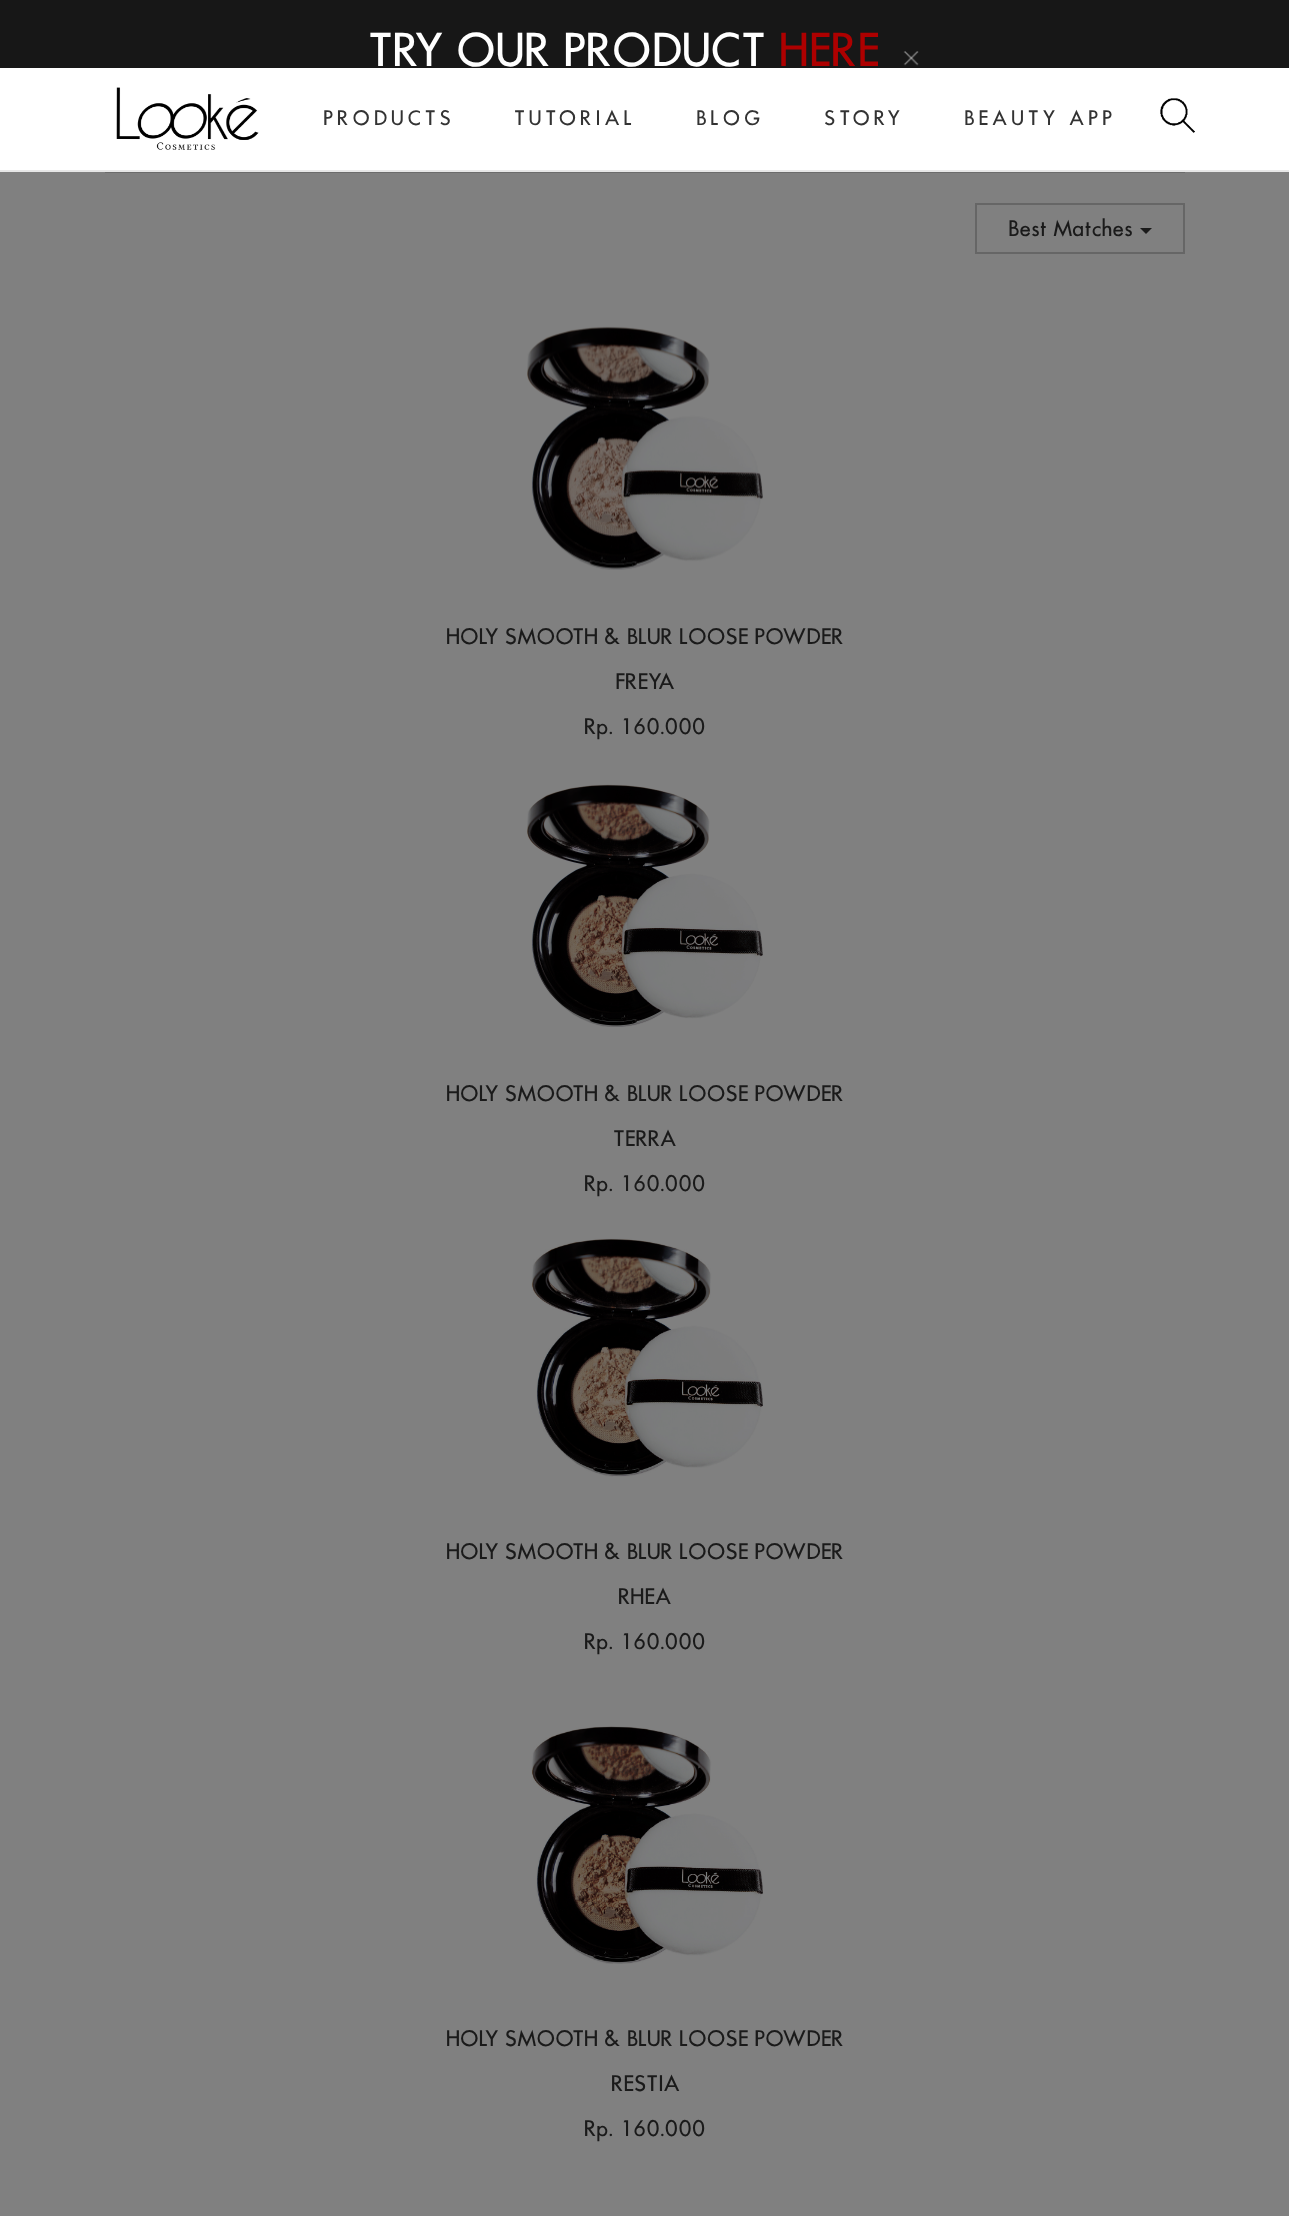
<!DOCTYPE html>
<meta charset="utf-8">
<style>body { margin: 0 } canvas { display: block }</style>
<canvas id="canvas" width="1289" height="2216"></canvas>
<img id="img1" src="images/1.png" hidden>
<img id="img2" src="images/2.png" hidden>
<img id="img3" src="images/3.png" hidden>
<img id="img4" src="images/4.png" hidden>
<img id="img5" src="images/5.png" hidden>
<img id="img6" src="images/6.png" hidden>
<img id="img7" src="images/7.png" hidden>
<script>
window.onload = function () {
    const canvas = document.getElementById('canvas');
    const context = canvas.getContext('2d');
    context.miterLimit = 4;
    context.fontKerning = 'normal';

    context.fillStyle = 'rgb(128, 128, 128)';
    context.fillRect(0, 0, 1289, 2216);
    context.fillStyle = 'rgb(23, 23, 23)';
    context.fillRect(0, 0, 1289, 68);
    context.drawImage(document.getElementById('img1'), 903, 51, 16, 15);
    context.fillStyle = 'rgb(255, 255, 255)';
    context.fillRect(0, 68, 1289, 102);
    context.fillStyle = 'rgb(231, 231, 231)';
    context.fillRect(0, 170, 1289, 2);
    context.drawImage(document.getElementById('img2'), 116, 87, 143, 63);
    context.drawImage(document.getElementById('img3'), 1160, 98, 35, 35);
    context.fillStyle = 'rgb(108, 108, 108)';
    context.fillRect(105, 172, 1080, 1);
    context.strokeStyle = 'rgb(102, 102, 102)';
    context.lineWidth = 2;
    context.strokeRect(976, 204, 208, 49);
    context.fillStyle = 'rgb(26, 26, 26)';
    context.beginPath();
    context.moveTo(1140, 228);
    context.lineTo(1152, 228);
    context.lineTo(1146, 234);
    context.closePath();
    context.fill();
    context.drawImage(document.getElementById('img4'), 527, 326, 236, 244);
    context.drawImage(document.getElementById('img5'), 527, 784, 236, 243);
    context.drawImage(document.getElementById('img6'), 531, 1238, 232, 239);
    context.drawImage(document.getElementById('img7'), 531, 1726, 232, 238);
    context.font = '44.25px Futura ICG';
    context.fillStyle = 'rgb(255, 255, 255)';
    context.fillText('TRY OUR PRODUCT', 368, 66);
    context.fillStyle = 'rgb(174, 0, 0)';
    context.fillText('HERE', 779, 66);
    context.letterSpacing = '3.9px';
    context.font = '19.5px Futura ICG';
    context.fillStyle = 'rgb(51, 51, 51)';
    context.fillText('PRODUCTS', 323, 125);
    context.fillText('TUTORIAL', 514, 125);
    context.fillText('BLOG', 696, 125);
    context.fillText('STORY', 824, 125);
    context.fillText('BEAUTY APP', 964, 125);
    context.letterSpacing = '0px';
    context.font = '21px Futura ICG';
    context.fillStyle = 'rgb(26, 26, 26)';
    context.fillText('Best Matches', 1008, 236);
    context.fillText('HOLY SMOOTH & BLUR LOOSE POWDER', 446, 644);
    context.fillText('FREYA', 615, 689);
    context.fillText('Rp. 160.000', 584, 734);
    context.fillText('HOLY SMOOTH & BLUR LOOSE POWDER', 446, 1101);
    context.fillText('TERRA', 613, 1146);
    context.fillText('Rp. 160.000', 584, 1191);
    context.fillText('HOLY SMOOTH & BLUR LOOSE POWDER', 446, 1559);
    context.fillText('RHEA', 618, 1604);
    context.fillText('Rp. 160.000', 584, 1649);
    context.fillText('HOLY SMOOTH & BLUR LOOSE POWDER', 446, 2046);
    context.fillText('RESTIA', 611, 2091);
    context.fillText('Rp. 160.000', 584, 2136);
};
</script>
